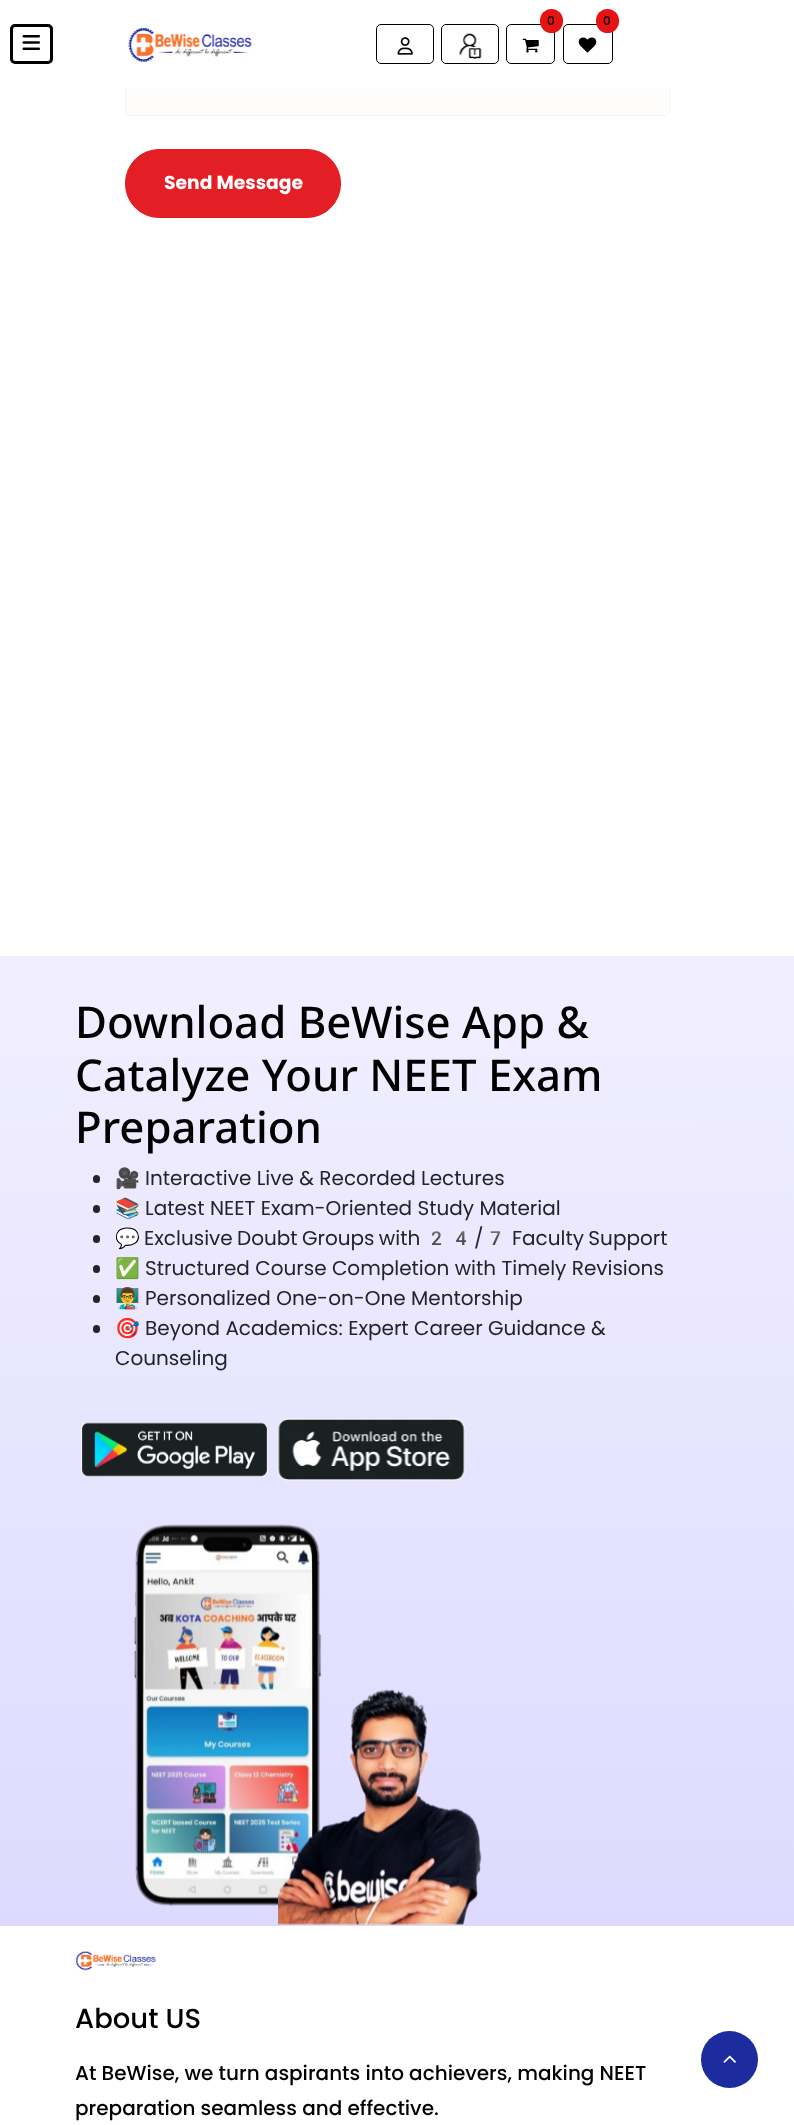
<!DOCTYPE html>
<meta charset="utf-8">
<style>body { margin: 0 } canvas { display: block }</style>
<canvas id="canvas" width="794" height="2125"></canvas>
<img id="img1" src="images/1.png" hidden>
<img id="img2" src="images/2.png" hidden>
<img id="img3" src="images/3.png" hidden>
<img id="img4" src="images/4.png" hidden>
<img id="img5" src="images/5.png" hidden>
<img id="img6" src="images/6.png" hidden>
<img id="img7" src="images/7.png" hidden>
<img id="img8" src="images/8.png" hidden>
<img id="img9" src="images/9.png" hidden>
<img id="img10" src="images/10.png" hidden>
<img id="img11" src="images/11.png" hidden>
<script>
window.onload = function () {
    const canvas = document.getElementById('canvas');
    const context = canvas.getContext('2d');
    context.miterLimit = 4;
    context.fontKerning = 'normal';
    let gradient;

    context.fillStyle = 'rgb(255, 255, 255)';
    context.fillRect(0, 0, 794, 2125);
    context.fillStyle = 'rgb(255, 253, 252)';
    context.beginPath();
    context.roundRect(126, -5, 543, 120, 5);
    context.fill();
    context.beginPath();
    context.roundRect(125.5, -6.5, 544, 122, 5.5);
    context.strokeStyle = 'rgb(243, 243, 243)';
    context.stroke();
    context.fillStyle = 'rgb(255, 255, 255)';
    context.fillRect(125, 0, 545, 88);
    context.beginPath();
    context.roundRect(506.5, 24.5, 48, 39, 4.5);
    context.strokeStyle = 'rgb(0, 0, 0)';
    context.stroke();
    context.fillStyle = 'rgb(229, 19, 19)';
    context.beginPath();
    context.roundRect(540, 9, 23, 24, 11.5);
    context.fill();
    context.drawImage(document.getElementById('img1'), 522, 38, 17, 15);
    context.beginPath();
    context.roundRect(563.5, 24.5, 49, 39, 4.5);
    context.stroke();
    context.beginPath();
    context.roundRect(596, 9, 23, 24, 11.5);
    context.fill();
    context.drawImage(document.getElementById('img2'), 578, 37, 19, 16);
    context.beginPath();
    context.roundRect(376.5, 24.5, 57, 39, 4.5);
    context.stroke();
    context.drawImage(document.getElementById('img3'), 397, 37, 16, 18);
    context.beginPath();
    context.roundRect(441.5, 24.5, 57, 39, 4.5);
    context.stroke();
    context.drawImage(document.getElementById('img4'), 459, 33, 23, 26);
    context.beginPath();
    context.roundRect(11.5, 25.5, 40, 37, 3.5);
    context.lineWidth = 3;
    context.stroke();
    context.drawImage(document.getElementById('img5'), 22, 35, 18, 15);
    context.drawImage(document.getElementById('img6'), 128, 27, 124, 36);
    context.fillStyle = 'rgb(227, 30, 36)';
    context.beginPath();
    context.roundRect(125.5, 149.5, 215, 68, 33.5);
    context.fill();
    context.strokeStyle = 'rgb(227, 30, 36)';
    context.lineWidth = 1;
    context.stroke();
    gradient = context.createLinearGradient(397, 956, 398, 1926);
    gradient.addColorStop(0, 'rgb(241, 239, 255)');
    gradient.addColorStop(1, 'rgb(222, 218, 255)');
    context.fillStyle = gradient;
    context.fillRect(0, 956, 794, 970);
    context.fillStyle = 'rgb(33, 37, 41)';
    context.beginPath();
    context.roundRect(93, 1175, 7, 8, 3.5);
    context.fill();
    context.beginPath();
    context.roundRect(93, 1205, 7, 8, 3.5);
    context.fill();
    context.beginPath();
    context.roundRect(93, 1235, 7, 8, 3.5);
    context.fill();
    context.beginPath();
    context.roundRect(93, 1265, 7, 8, 3.5);
    context.fill();
    context.beginPath();
    context.roundRect(93, 1295, 7, 8, 3.5);
    context.fill();
    context.beginPath();
    context.roundRect(93, 1325, 7, 8, 3.5);
    context.fill();
    context.drawImage(document.getElementById('img7'), 81, 1422, 187, 55);
    context.drawImage(document.getElementById('img8'), 277, 1418, 189, 63);
    context.drawImage(document.getElementById('img9'), 134, 1524, 348, 401);
    context.drawImage(document.getElementById('img10'), 75, 1951, 81, 20);
    context.fillStyle = 'rgb(28, 44, 159)';
    context.beginPath();
    context.arc(729.5, 2059.5, 28.5, 0, 2 * Math.PI);
    context.fill();
    context.drawImage(document.getElementById('img11'), 723, 2055, 13, 8);
    context.font = '500 12px Poppins';
    context.fillStyle = 'rgb(0, 0, 0)';
    context.fillText('0', 547, 25);
    context.fillText('0', 603, 25);
    context.font = 'bold 18.75px Poppins';
    context.fillStyle = 'rgb(255, 255, 255)';
    context.fillText('Send Message', 164, 189);
    context.font = '500 43.75px Noto Sans';
    context.fillStyle = 'rgb(0, 0, 0)';
    context.fillText('Download BeWise App &', 75, 1038);
    context.fillText('Catalyze Your NEET Exam', 75, 1091);
    context.fillText('Preparation', 75, 1143);
    context.font = '20px Noto Color Emoji';
    context.fillStyle = 'rgb(33, 37, 41)';
    context.fillText('🎥', 115, 1185);
    context.font = '20px Poppins';
    context.fillText('Interactive Live & Recorded Lectures', 145, 1185);
    context.font = '20px Noto Color Emoji';
    context.fillText('📚', 115, 1215);
    context.font = '20px Poppins';
    context.fillText('Latest NEET Exam-Oriented Study Material', 145, 1215);
    context.font = '20px Noto Color Emoji';
    context.fillText('💬', 115, 1245);
    context.wordSpacing = '-1px';
    context.font = '20px Poppins';
    context.fillText('Exclusive Doubt Groups with', 144, 1245);
    context.wordSpacing = '0px';
    context.font = '20px Noto Color Emoji';
    context.fillText('24', 424, 1245);
    context.font = '20px Poppins';
    context.fillText('/', 474, 1245);
    context.font = '20px Noto Color Emoji';
    context.fillText('7', 483, 1245);
    context.wordSpacing = '-1px';
    context.font = '20px Poppins';
    context.fillText('Faculty Support', 512, 1245);
    context.wordSpacing = '0px';
    context.font = '20px Noto Color Emoji';
    context.fillText('✅', 115, 1275);
    context.font = '20px Poppins';
    context.fillText('Structured Course Completion with Timely Revisions', 145, 1275);
    context.font = '20px Noto Color Emoji';
    context.fillText('👨‍🏫', 115, 1305);
    context.font = '20px Poppins';
    context.fillText('Personalized One-on-One Mentorship', 145, 1305);
    context.font = '20px Noto Color Emoji';
    context.fillText('🎯', 115, 1335);
    context.font = '20px Poppins';
    context.fillText('Beyond Academics: Expert Career Guidance &', 145, 1335);
    context.fillText('Counseling', 115, 1365);
    context.font = '500 27.5px Poppins';
    context.fillStyle = 'rgb(0, 0, 0)';
    context.fillText('About US', 75, 2028);
    context.font = '500 20px Poppins';
    context.fillText('At BeWise, we turn aspirants into achievers, making NEET', 75, 2080);
    context.fillText('preparation seamless and effective.', 75, 2115);
};
</script>
